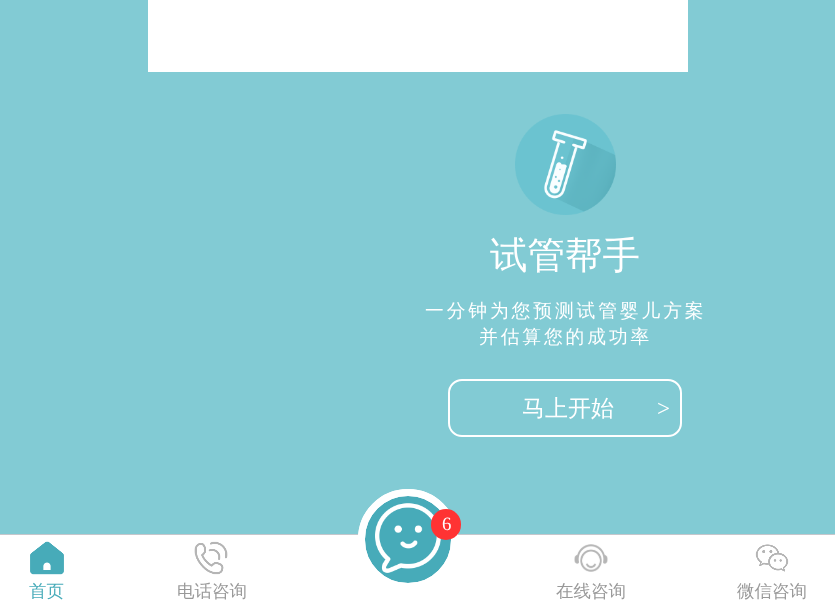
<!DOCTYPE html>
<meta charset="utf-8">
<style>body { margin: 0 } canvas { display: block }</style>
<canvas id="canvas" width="835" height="616"></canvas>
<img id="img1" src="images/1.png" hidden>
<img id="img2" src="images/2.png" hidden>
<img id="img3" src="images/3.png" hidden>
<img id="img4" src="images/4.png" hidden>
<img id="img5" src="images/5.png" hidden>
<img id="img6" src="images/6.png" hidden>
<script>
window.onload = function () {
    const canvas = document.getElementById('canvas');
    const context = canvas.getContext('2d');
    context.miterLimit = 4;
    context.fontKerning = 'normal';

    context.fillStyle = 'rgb(130, 203, 212)';
    context.fillRect(0, 0, 835, 616);
    context.fillStyle = 'rgb(255, 255, 255)';
    context.fillRect(148, 0, 540, 72);
    context.drawImage(document.getElementById('img1'), 515, 114, 101, 101);
    context.beginPath();
    context.roundRect(449, 380, 232, 56, 13);
    context.strokeStyle = 'rgb(255, 255, 255)';
    context.lineWidth = 2;
    context.stroke();
    context.fillRect(0, 535, 835, 81);
    context.fillStyle = 'rgb(197, 199, 204)';
    context.fillRect(0, 534, 835, 1);
    context.fillStyle = 'rgb(71, 171, 185)';
    context.beginPath();
    context.roundRect(361.5, 492.5, 93, 94, 46.5);
    context.fill();
    context.lineWidth = 7;
    context.stroke();
    context.drawImage(document.getElementById('img2'), 375, 503, 66, 70);
    context.beginPath();
    context.roundRect(361.5, 492.5, 93, 94, 46.5);
    context.stroke();
    context.fillStyle = 'rgb(255, 51, 51)';
    context.beginPath();
    context.roundRect(431, 509, 30, 31, 15);
    context.fill();
    context.drawImage(document.getElementById('img3'), 30, 541, 34, 34);
    context.drawImage(document.getElementById('img4'), 194, 541, 34, 34);
    context.drawImage(document.getElementById('img5'), 574, 544, 34, 28);
    context.drawImage(document.getElementById('img6'), 755, 544, 34, 28);
    context.font = '500 37.5px WenQuanYi Zen Hei';
    context.fillStyle = 'rgb(255, 255, 255)';
    context.fillText('试管帮手', 490, 268);
    context.letterSpacing = '2.9px';
    context.font = '500 18.75px WenQuanYi Zen Hei';
    context.fillText('一分钟为您预测试管婴儿方案', 425, 317);
    context.fillText('并估算您的成功率', 479, 343);
    context.letterSpacing = '0px';
    context.font = '500 23px WenQuanYi Zen Hei';
    context.fillText('马上开始', 522, 416);
    context.font = '23px Liberation Serif';
    context.fillText('>', 657, 416);
    context.font = '18.75px Liberation Serif';
    context.fillText('6', 442, 530);
    context.font = '500 17.5px WenQuanYi Zen Hei';
    context.fillStyle = 'rgb(71, 171, 185)';
    context.fillText('首页', 29, 597);
    context.fillStyle = 'rgb(153, 153, 153)';
    context.fillText('电话咨询', 177, 597);
    context.fillText('在线咨询', 556, 597);
    context.fillText('微信咨询', 737, 597);
};
</script>
